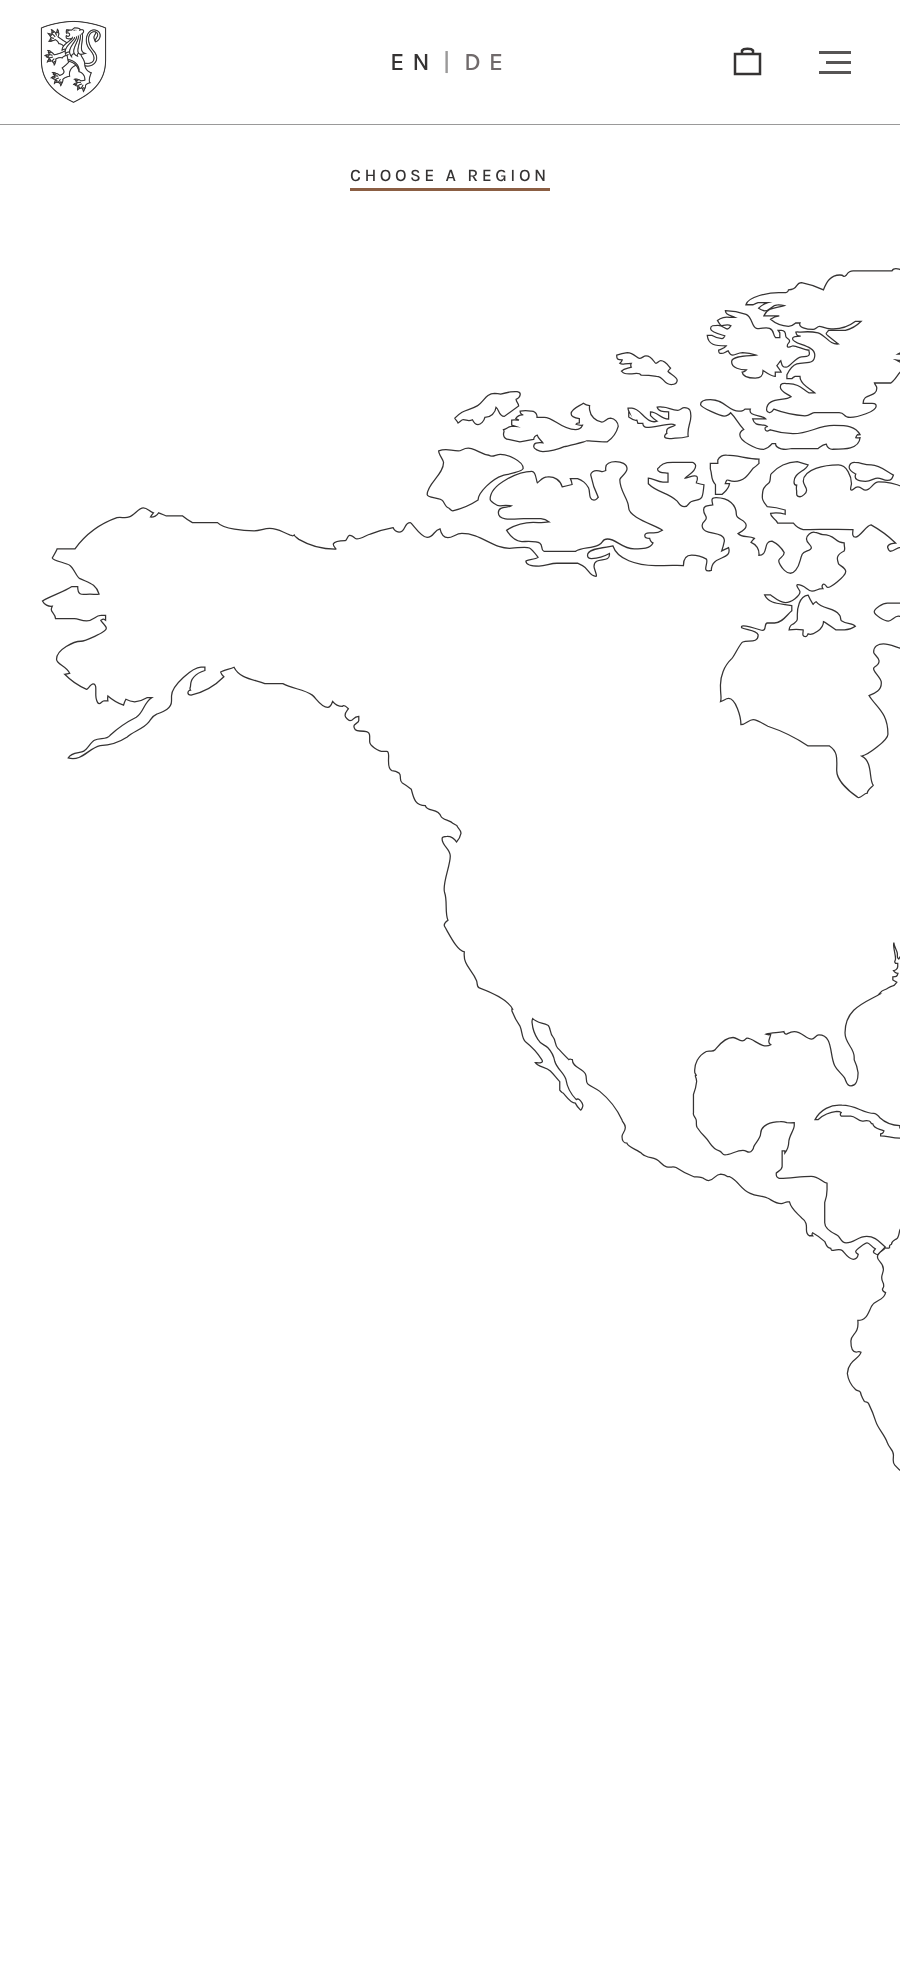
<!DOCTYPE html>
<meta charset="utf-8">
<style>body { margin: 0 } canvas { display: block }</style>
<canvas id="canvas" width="900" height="1979"></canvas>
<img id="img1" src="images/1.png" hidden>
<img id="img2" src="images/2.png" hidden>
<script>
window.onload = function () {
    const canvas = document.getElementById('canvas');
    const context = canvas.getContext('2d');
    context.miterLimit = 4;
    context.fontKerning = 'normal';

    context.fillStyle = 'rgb(255, 255, 255)';
    context.fillRect(0, 0, 900, 1979);
    context.fillStyle = 'rgb(154, 153, 153)';
    context.fillRect(0, 124, 900, 1);
    context.drawImage(document.getElementById('img1'), 40, 20, 67, 83);
    context.beginPath();
    context.moveTo(753, 54);
    context.lineTo(753, 50.5);
    context.bezierCurveTo(751.5, 48, 743.5, 48, 742, 50.5);
    context.lineTo(742, 54);
    context.moveTo(760, 54);
    context.lineTo(735, 54);
    context.lineTo(735, 74);
    context.lineTo(760, 74);
    context.closePath();
    context.strokeStyle = 'rgb(53, 51, 51)';
    context.lineWidth = 2.5;
    context.stroke();
    context.fillStyle = 'rgb(87, 85, 85)';
    context.fillRect(819, 51, 32, 3);
    context.fillRect(826, 61, 25, 3);
    context.fillRect(819, 71, 32, 3);
    context.fillStyle = 'rgb(139, 94, 67)';
    context.fillRect(350, 188, 200, 3);
    context.drawImage(document.getElementById('img2'), 41, 268, 859, 1203);
    context.letterSpacing = '8px';
    context.font = '500 25px Karla';
    context.fillStyle = 'rgb(53, 51, 51)';
    context.fillText('EN', 390, 70);
    context.fillStyle = 'rgb(154, 153, 153)';
    context.fillText('|', 443, 70);
    context.fillStyle = 'rgb(112, 106, 107)';
    context.fillText('DE', 464, 70);
    context.letterSpacing = '3.5px';
    context.font = '500 17.5px Karla';
    context.fillStyle = 'rgb(53, 51, 51)';
    context.fillText('CHOOSE A REGION', 350, 181);
};
</script>
